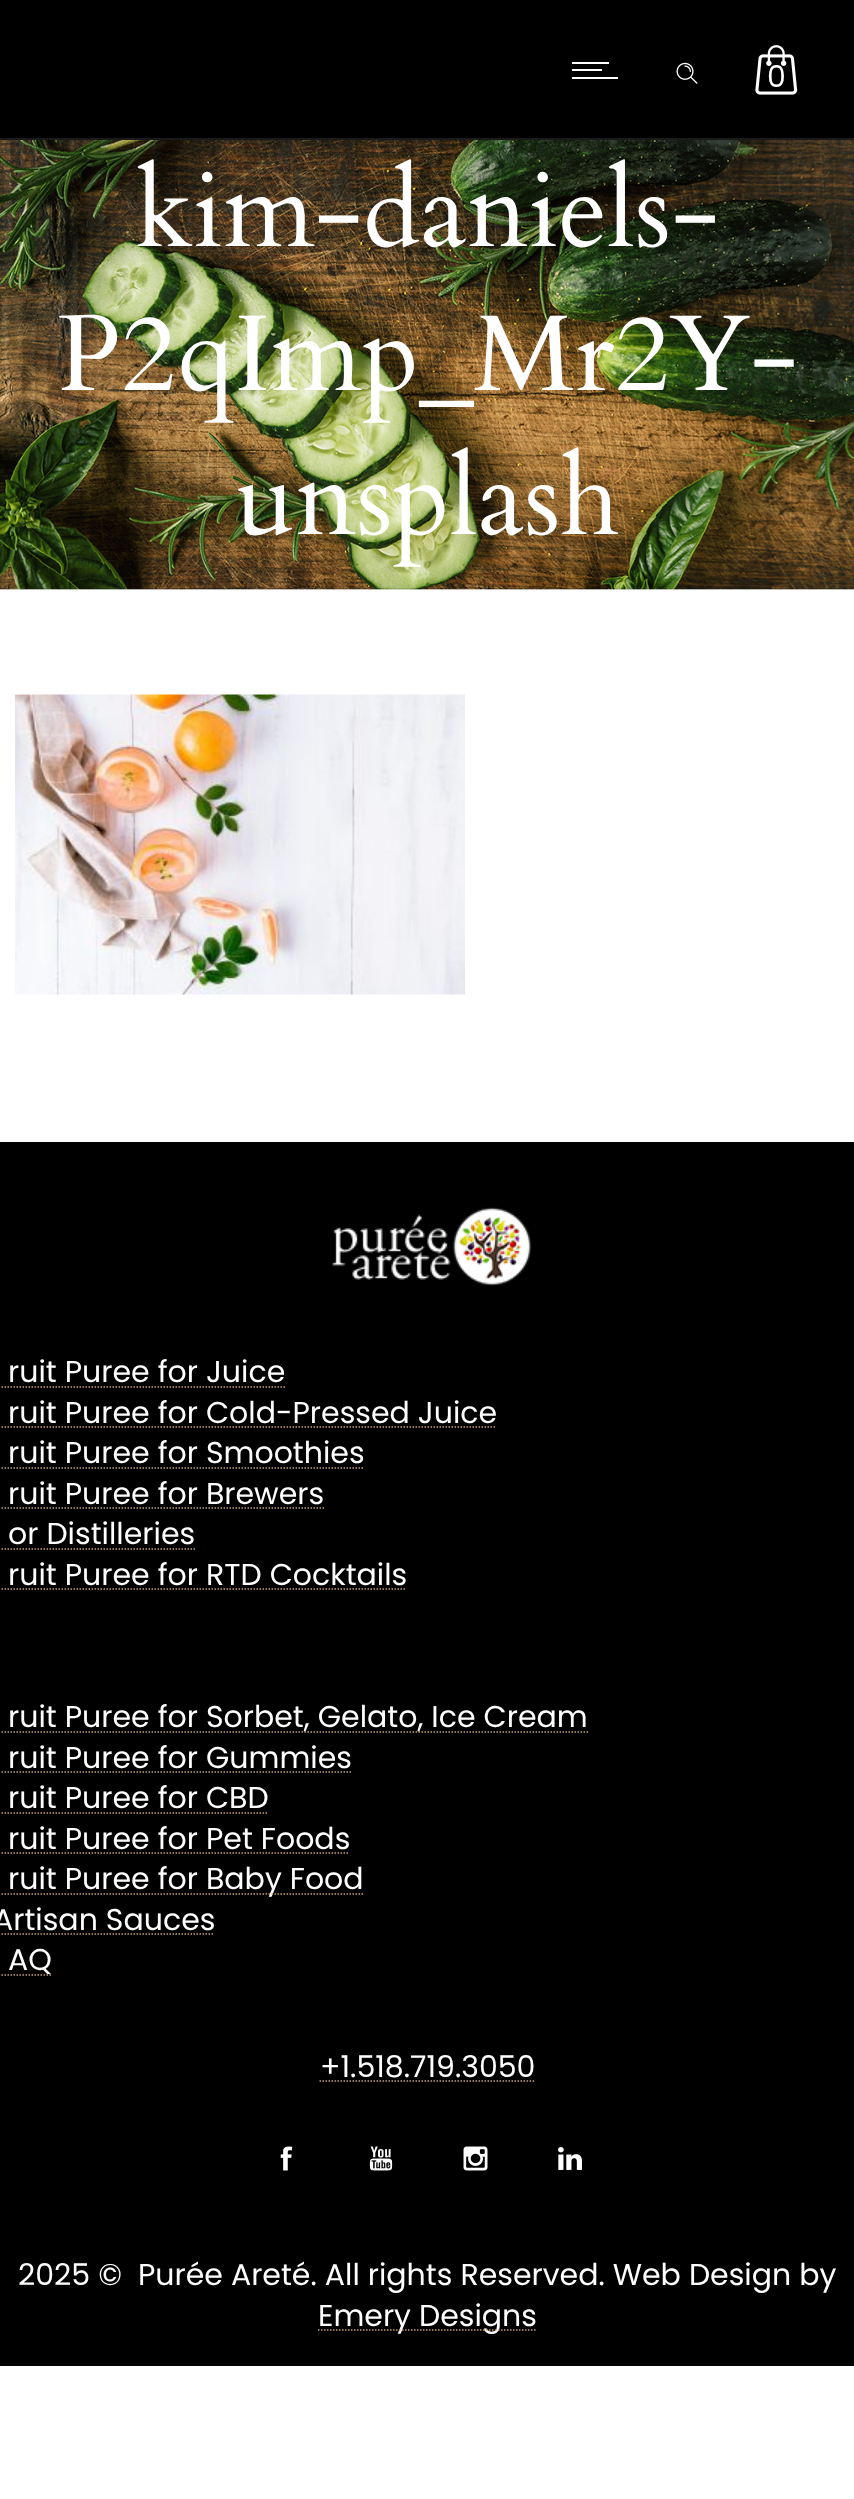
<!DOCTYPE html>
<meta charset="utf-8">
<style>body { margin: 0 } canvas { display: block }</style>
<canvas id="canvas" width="854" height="2499"></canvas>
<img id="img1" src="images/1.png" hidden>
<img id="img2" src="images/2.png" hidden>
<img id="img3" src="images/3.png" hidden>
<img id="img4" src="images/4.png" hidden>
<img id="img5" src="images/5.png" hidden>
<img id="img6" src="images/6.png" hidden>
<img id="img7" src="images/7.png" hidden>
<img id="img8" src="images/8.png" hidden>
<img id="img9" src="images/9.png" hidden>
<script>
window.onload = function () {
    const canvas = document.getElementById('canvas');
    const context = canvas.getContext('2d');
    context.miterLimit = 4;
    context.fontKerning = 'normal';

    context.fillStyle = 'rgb(255, 255, 255)';
    context.fillRect(0, 0, 854, 2499);
    context.fillStyle = 'rgb(0, 0, 0)';
    context.fillRect(0, 0, 854, 138);
    context.fillStyle = 'rgb(26, 26, 26)';
    context.fillRect(0, 138, 854, 2);
    context.fillStyle = 'rgb(255, 255, 255)';
    context.fillRect(572, 62, 37, 2);
    context.fillRect(572, 69, 30, 2);
    context.fillRect(572, 77, 46, 2);
    context.drawImage(document.getElementById('img1'), 676, 62, 22, 22);
    context.drawImage(document.getElementById('img2'), 755, 45, 43, 50);
    context.drawImage(document.getElementById('img3'), 0, 140, 854, 450);
    context.fillStyle = 'rgba(27, 27, 27, 0.1)';
    context.fillRect(0, 588, 854, 2);
    context.drawImage(document.getElementById('img4'), 15, 694, 450, 301);
    context.fillStyle = 'rgb(0, 0, 0)';
    context.fillRect(0, 1142, 854, 1224);
    context.drawImage(document.getElementById('img5'), 331, 1207, 200, 79);
    context.beginPath();
    context.moveTo(-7.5, 1387);
    context.lineTo(285, 1387);
    context.strokeStyle = 'rgb(195, 159, 118)';
    context.lineWidth = 1.5;
    context.setLineDash([1.5, 1.5]);
    context.stroke();
    context.beginPath();
    context.moveTo(-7.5, 1427);
    context.lineTo(496.5, 1427);
    context.stroke();
    context.beginPath();
    context.moveTo(-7.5, 1468);
    context.lineTo(364.5, 1468);
    context.stroke();
    context.beginPath();
    context.moveTo(-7.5, 1508);
    context.lineTo(324, 1508);
    context.stroke();
    context.beginPath();
    context.moveTo(-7.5, 1549);
    context.lineTo(195, 1549);
    context.stroke();
    context.beginPath();
    context.moveTo(-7.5, 1589);
    context.lineTo(406.5, 1589);
    context.stroke();
    context.beginPath();
    context.moveTo(-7.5, 1772);
    context.lineTo(351, 1772);
    context.stroke();
    context.beginPath();
    context.moveTo(-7.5, 1813);
    context.lineTo(268.5, 1813);
    context.stroke();
    context.beginPath();
    context.moveTo(-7.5, 1853);
    context.lineTo(349.5, 1853);
    context.stroke();
    context.beginPath();
    context.moveTo(-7.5, 1934);
    context.lineTo(214.5, 1934);
    context.stroke();
    context.beginPath();
    context.moveTo(-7.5, 1975);
    context.lineTo(51, 1975);
    context.stroke();
    context.beginPath();
    context.moveTo(319.5, 2081);
    context.lineTo(535.5, 2081);
    context.stroke();
    context.drawImage(document.getElementById('img6'), 280, 2146, 13, 25);
    context.drawImage(document.getElementById('img7'), 369, 2146, 24, 25);
    context.drawImage(document.getElementById('img8'), 463, 2146, 25, 25);
    context.drawImage(document.getElementById('img9'), 558, 2147, 24, 23);
    context.font = '30px Poppins';
    context.fillStyle = 'rgb(255, 255, 255)';
    context.fillText('0', 767, 87);
    context.font = '108px Cardo';
    context.fillText('kim-daniels-', 135, 246);
    context.fillText('P2qImp_Mr2Y-', 57, 390);
    context.fillText('unsplash', 236, 534);
    context.font = '30px Poppins';
    context.fillText('ruit Puree for Juice', 8, 1382);
    context.fillText('ruit Puree for Cold-Pressed Juice', 8, 1423);
    context.fillText('ruit Puree for Smoothies', 8, 1463);
    context.fillText('ruit Puree for Brewers', 8, 1504);
    context.fillText('or Distilleries', 8, 1544);
    context.fillText('ruit Puree for RTD Cocktails', 8, 1585);
    context.fillText('ruit Puree for Sorbet, Gelato, Ice Cream', 8, 1727);
    context.beginPath();
    context.moveTo(-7.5, 1732);
    context.lineTo(588, 1732);
    context.stroke();
    context.fillText('ruit Puree for Gummies', 8, 1768);
    context.fillText('ruit Puree for CBD', 8, 1808);
    context.fillText('ruit Puree for Pet Foods', 8, 1849);
    context.fillText('ruit Puree for Baby Food', 8, 1889);
    context.beginPath();
    context.moveTo(-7.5, 1894);
    context.lineTo(363, 1894);
    context.stroke();
    context.fillText('Artisan Sauces', -7, 1930);
    context.fillText('AQ', 8, 1970);
    context.fillText('+1.518.719.3050', 320, 2077);
    context.fillText('2025 ©  Purée Areté. All rights Reserved. Web Design by', 18, 2285);
    context.fillText('Emery Designs', 318, 2326);
    context.beginPath();
    context.moveTo(318, 2330);
    context.lineTo(537, 2330);
    context.stroke();
};
</script>
